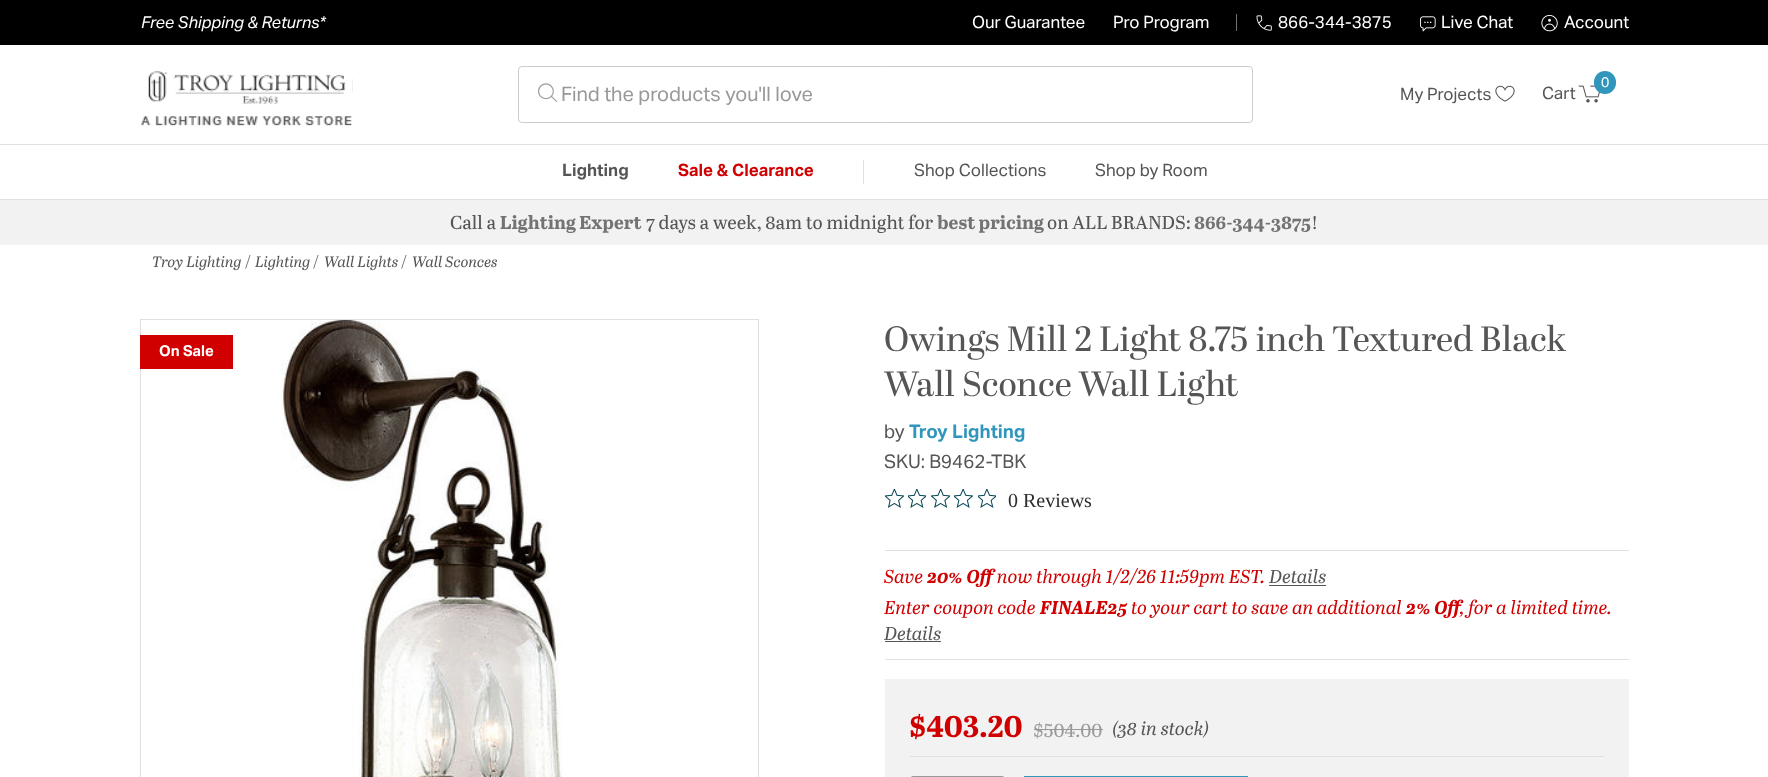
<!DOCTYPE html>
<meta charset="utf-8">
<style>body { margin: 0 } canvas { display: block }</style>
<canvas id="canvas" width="1768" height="777"></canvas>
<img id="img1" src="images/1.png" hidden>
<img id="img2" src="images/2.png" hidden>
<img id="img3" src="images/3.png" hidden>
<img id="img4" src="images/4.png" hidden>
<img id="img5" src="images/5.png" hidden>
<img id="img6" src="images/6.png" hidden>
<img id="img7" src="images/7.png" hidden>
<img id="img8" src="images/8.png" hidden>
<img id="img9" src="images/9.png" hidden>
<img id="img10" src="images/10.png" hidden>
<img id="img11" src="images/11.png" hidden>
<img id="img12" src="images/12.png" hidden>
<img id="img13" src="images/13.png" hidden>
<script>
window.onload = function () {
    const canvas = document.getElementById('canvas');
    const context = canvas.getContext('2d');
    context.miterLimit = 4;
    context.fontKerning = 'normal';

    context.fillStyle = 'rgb(255, 255, 255)';
    context.fillRect(0, 0, 1768, 777);
    context.fillStyle = 'rgb(0, 0, 0)';
    context.fillRect(0, 0, 1768, 45);
    context.fillStyle = 'rgb(111, 113, 115)';
    context.fillRect(1236, 14, 1, 17);
    context.drawImage(document.getElementById('img1'), 1256, 15, 16, 16);
    context.drawImage(document.getElementById('img2'), 1420, 16, 16, 16);
    context.drawImage(document.getElementById('img3'), 1541, 15, 17, 17);
    context.drawImage(document.getElementById('img4'), 352, 79, 1, 46);
    context.drawImage(document.getElementById('img5'), 140, 65, 213, 61);
    context.beginPath();
    context.roundRect(518.5, 66.5, 734, 56, 3.5);
    context.strokeStyle = 'rgb(204, 204, 208)';
    context.stroke();
    context.drawImage(document.getElementById('img6'), 538, 83, 19, 19);
    context.drawImage(document.getElementById('img7'), 1495, 85, 20, 17);
    context.drawImage(document.getElementById('img8'), 1578, 85, 22, 18);
    context.fillStyle = 'rgb(48, 150, 187)';
    context.beginPath();
    context.roundRect(1594, 71, 22, 23, 11);
    context.fill();
    context.fillStyle = 'rgb(222, 226, 230)';
    context.fillRect(0, 144, 1768, 1);
    context.fillRect(0, 199, 1768, 1);
    context.fillRect(863, 160, 1, 24);
    context.fillStyle = 'rgb(242, 242, 242)';
    context.fillRect(0, 200, 1768, 45);
    context.strokeStyle = 'rgb(224, 224, 224)';
    context.strokeRect(140.5, 319.5, 618, 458);
    context.drawImage(document.getElementById('img9'), 281, 320, 282, 457);
    context.fillStyle = 'rgb(208, 0, 0)';
    context.fillRect(140, 335, 93, 34);
    context.fillStyle = 'rgb(224, 224, 224)';
    context.fillRect(885, 550, 744, 1);
    context.drawImage(document.getElementById('img10'), 885, 489, 19, 19);
    context.drawImage(document.getElementById('img11'), 908, 489, 18, 19);
    context.drawImage(document.getElementById('img12'), 931, 489, 19, 19);
    context.drawImage(document.getElementById('img13'), 954, 489, 19, 19);
    context.drawImage(document.getElementById('img11'), 978, 489, 18, 19);
    context.fillRect(885, 659, 744, 1);
    context.fillStyle = 'rgb(85, 85, 85)';
    context.fillRect(1269, 585, 57, 1);
    context.fillRect(885, 641, 56, 1);
    context.fillStyle = 'rgb(242, 242, 242)';
    context.fillRect(885, 679, 744, 98);
    context.fillStyle = 'rgb(224, 224, 224)';
    context.fillRect(910, 756, 694, 1);
    context.fillStyle = 'rgb(153, 153, 153)';
    context.fillRect(1034, 729, 69, 1);
    context.beginPath();
    context.roundRect(910.5, 776.5, 94, 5, 3.5);
    context.strokeStyle = 'rgb(153, 153, 153)';
    context.stroke();
    context.fillStyle = 'rgb(48, 150, 187)';
    context.fillRect(1024, 776, 224, 1);
    context.font = 'italic 16.4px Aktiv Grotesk';
    context.fillStyle = 'rgb(255, 255, 255)';
    context.fillText('Free Shipping & Returns*', 141, 28);
    context.font = '17px Aktiv Grotesk';
    context.fillText('Our Guarantee', 972, 28);
    context.fillText('Pro Program', 1113, 28);
    context.fillText('866-344-3875', 1278, 28);
    context.fillText('Live Chat', 1441, 28);
    context.fillText('Account', 1564, 28);
    context.font = '20px Aktiv Grotesk';
    context.fillStyle = 'rgb(153, 153, 153)';
    context.fillText('Find the products you\'ll love', 561, 101);
    context.font = '17px Aktiv Grotesk';
    context.fillStyle = 'rgb(85, 85, 85)';
    context.fillText('My Projects', 1400, 100);
    context.font = '14px Aktiv Grotesk';
    context.fillStyle = 'rgb(255, 255, 255)';
    context.fillText('0', 1601, 87);
    context.font = '17px Aktiv Grotesk';
    context.fillStyle = 'rgb(85, 85, 85)';
    context.fillText('Cart', 1542, 99);
    context.font = 'bold 17px Aktiv Grotesk';
    context.fillText('Lighting', 562, 176);
    context.fillStyle = 'rgb(208, 0, 0)';
    context.fillText('Sale & Clearance', 678, 176);
    context.font = '17px Aktiv Grotesk';
    context.fillStyle = 'rgb(85, 85, 85)';
    context.fillText('Shop Collections', 914, 176);
    context.fillText('Shop by Room', 1095, 176);
    context.font = '18.75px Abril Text';
    context.fillText('Call a', 450, 229);
    context.font = 'bold 18.75px Abril Text';
    context.fillStyle = 'rgb(115, 115, 115)';
    context.fillText('Lighting Expert', 500, 229);
    context.font = '18.75px Abril Text';
    context.fillStyle = 'rgb(85, 85, 85)';
    context.fillText('7 days a week, 8am to midnight for', 646, 229);
    context.font = 'bold 18.75px Abril Text';
    context.fillStyle = 'rgb(115, 115, 115)';
    context.fillText('best pricing', 937, 229);
    context.font = '18.75px Abril Text';
    context.fillStyle = 'rgb(85, 85, 85)';
    context.fillText('on ALL BRANDS:', 1047, 229);
    context.font = 'bold 18.75px Abril Text';
    context.fillStyle = 'rgb(115, 115, 115)';
    context.fillText('866-344-3875', 1194, 229);
    context.font = '18.75px Abril Text';
    context.fillStyle = 'rgb(85, 85, 85)';
    context.fillText('!', 1311, 229);
    context.font = 'italic 15px Abril Text';
    context.fillText('Troy Lighting', 152, 267);
    context.font = '15px Abril Text';
    context.fillStyle = 'rgb(108, 117, 125)';
    context.fillText('/', 245, 267);
    context.font = 'italic 15px Abril Text';
    context.fillStyle = 'rgb(85, 85, 85)';
    context.fillText('Lighting', 255, 267);
    context.font = '15px Abril Text';
    context.fillStyle = 'rgb(108, 117, 125)';
    context.fillText('/', 313, 267);
    context.font = 'italic 15px Abril Text';
    context.fillStyle = 'rgb(85, 85, 85)';
    context.fillText('Wall Lights', 324, 267);
    context.font = '15px Abril Text';
    context.fillStyle = 'rgb(108, 117, 125)';
    context.fillText('/', 401, 267);
    context.font = 'italic 15px Abril Text';
    context.fillStyle = 'rgb(85, 85, 85)';
    context.fillText('Wall Sconces', 412, 267);
    context.font = 'bold 15px Aktiv Grotesk';
    context.fillStyle = 'rgb(255, 255, 255)';
    context.fillText('On Sale', 159, 356);
    context.font = '35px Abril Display';
    context.fillStyle = 'rgb(85, 85, 85)';
    context.fillText('Owings Mill 2 Light 8.75 inch Textured Black', 884, 351);
    context.fillText('Wall Sconce Wall Light', 884, 396);
    context.font = '18.75px Aktiv Grotesk';
    context.fillText('by', 884, 438);
    context.font = 'bold 18.75px Aktiv Grotesk';
    context.fillStyle = 'rgb(48, 150, 187)';
    context.fillText('Troy Lighting', 909, 438);
    context.font = '18.75px Aktiv Grotesk';
    context.fillStyle = 'rgb(85, 85, 85)';
    context.fillText('SKU: B9462-TBK', 884, 468);
    context.font = '20px Liberation Serif';
    context.fillStyle = 'rgb(44, 44, 44)';
    context.fillText('0 Reviews', 1008, 507);
    context.font = 'italic 18.75px Abril Text';
    context.fillStyle = 'rgb(208, 0, 0)';
    context.fillText('Save', 884, 583);
    context.font = 'italic bold 18.75px Abril Text';
    context.fillText('20% Off', 927, 583);
    context.font = 'italic 18.75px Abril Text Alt';
    context.fillText('now through 1/2/26 11:59pm EST.', 997, 583);
    context.font = 'italic 18.75px Abril Text';
    context.fillStyle = 'rgb(85, 85, 85)';
    context.fillText('Details', 1269, 583);
    context.fillStyle = 'rgb(208, 0, 0)';
    context.fillText('Enter coupon code', 884, 614);
    context.font = 'italic bold 18.75px Abril Text';
    context.fillText('FINALE25', 1040, 614);
    context.font = 'italic 18.75px Abril Text';
    context.fillText('to your cart to save an additional', 1131, 614);
    context.font = 'italic bold 18.75px Abril Text';
    context.fillText('2% Off', 1406, 614);
    context.font = 'italic 18.75px Abril Text';
    context.fillText(', for a limited time.', 1460, 614);
    context.fillStyle = 'rgb(85, 85, 85)';
    context.fillText('Details', 884, 640);
    context.font = 'bold 30px Abril Text Alt';
    context.fillStyle = 'rgb(208, 0, 0)';
    context.fillText('$403.20', 909, 737);
    context.font = '18.75px Abril Text Alt';
    context.fillStyle = 'rgb(153, 153, 153)';
    context.fillText('$504.00', 1033, 737);
    context.font = 'italic 18.75px Abril Text';
    context.fillStyle = 'rgb(85, 85, 85)';
    context.fillText('(38 in stock)', 1112, 735);
};
</script>
